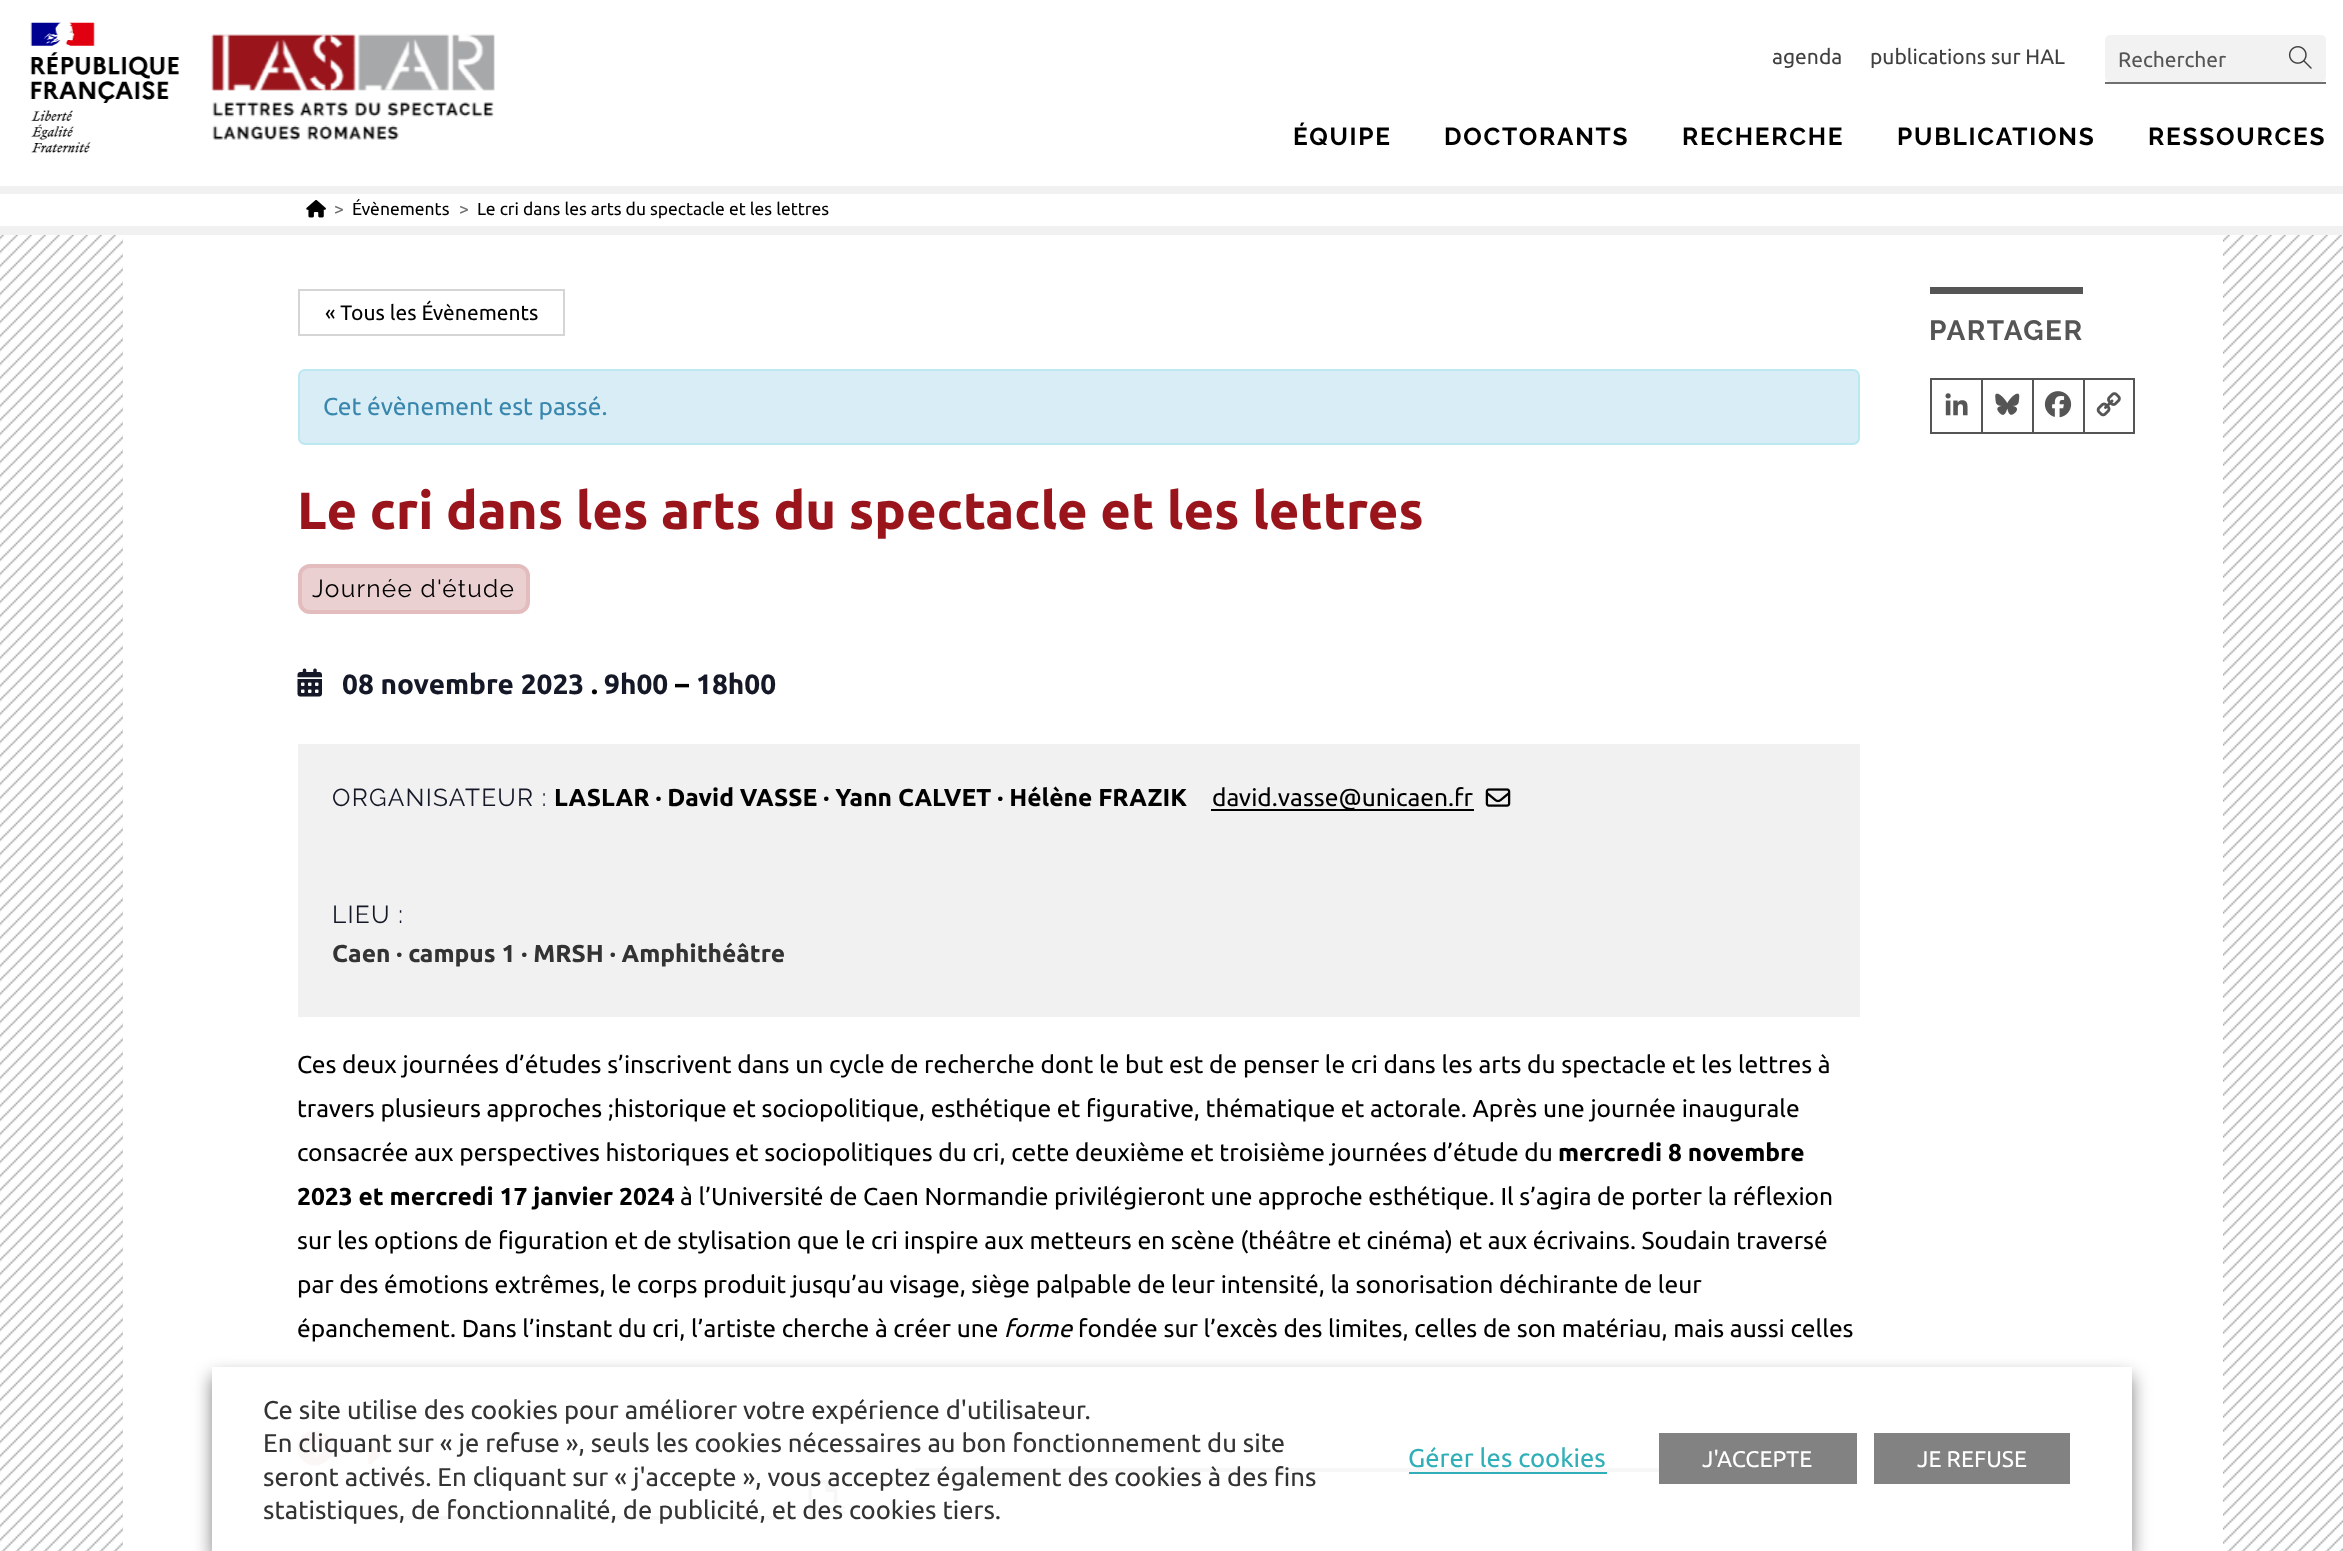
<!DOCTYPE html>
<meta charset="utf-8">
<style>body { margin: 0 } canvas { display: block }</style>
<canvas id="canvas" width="2343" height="1551"></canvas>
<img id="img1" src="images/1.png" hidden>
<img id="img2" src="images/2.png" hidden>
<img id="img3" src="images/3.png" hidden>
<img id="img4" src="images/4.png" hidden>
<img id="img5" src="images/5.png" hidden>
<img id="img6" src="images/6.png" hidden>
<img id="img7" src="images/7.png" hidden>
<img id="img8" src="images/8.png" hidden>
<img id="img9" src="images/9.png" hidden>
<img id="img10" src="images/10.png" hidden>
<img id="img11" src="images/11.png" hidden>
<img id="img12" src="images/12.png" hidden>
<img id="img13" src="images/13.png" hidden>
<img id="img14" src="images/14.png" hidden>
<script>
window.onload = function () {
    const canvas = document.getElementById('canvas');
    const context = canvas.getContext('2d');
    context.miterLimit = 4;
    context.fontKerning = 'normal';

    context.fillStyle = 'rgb(255, 255, 255)';
    context.fillRect(0, 0, 2343, 1551);
    context.drawImage(document.getElementById('img1'), 0, 235, 2343, 1316);
    context.drawImage(document.getElementById('img2'), 30, 22, 149, 131);
    context.drawImage(document.getElementById('img3'), 211, 34, 284, 106);
    context.fillStyle = 'rgb(112, 112, 112)';
    context.fillRect(2105, 82, 221, 2);
    context.fillStyle = 'rgb(242, 242, 242)';
    context.beginPath();
    context.roundRect(2105, 35, 221, 47, 5);
    context.fill();
    context.drawImage(document.getElementById('img4'), 2288, 46, 24, 23);
    context.fillStyle = 'rgb(241, 241, 241)';
    context.fillRect(0, 186, 2343, 8);
    context.fillRect(0, 226, 2343, 9);
    context.drawImage(document.getElementById('img5'), 306, 200, 20, 18);
    context.fillStyle = 'rgb(255, 255, 255)';
    context.fillRect(123, 235, 2100, 1316);
    context.strokeStyle = 'rgb(213, 213, 213)';
    context.lineWidth = 2;
    context.strokeRect(299, 290, 265, 45);
    context.fillStyle = 'rgb(217, 237, 247)';
    context.beginPath();
    context.roundRect(299, 370, 1560, 74, 6);
    context.fill();
    context.strokeStyle = 'rgb(188, 232, 241)';
    context.stroke();
    context.fillStyle = 'rgb(235, 208, 209)';
    context.beginPath();
    context.roundRect(298, 564, 232, 50, 12);
    context.fill();
    context.beginPath();
    context.roundRect(300, 566, 228, 46, 10);
    context.strokeStyle = 'rgba(154, 20, 27, 0.1)';
    context.lineWidth = 4;
    context.stroke();
    context.drawImage(document.getElementById('img6'), 297, 668, 25, 29);
    context.fillStyle = 'rgb(241, 241, 241)';
    context.fillRect(298, 744, 1562, 273);
    context.fillStyle = 'rgb(0, 0, 0)';
    context.fillRect(1211, 809, 263, 2);
    context.drawImage(document.getElementById('img7'), 1485, 788, 26, 19);
    context.drawImage(document.getElementById('img8'), 297, 1430, 36, 36);
    context.drawImage(document.getElementById('img9'), 368, 1443, 13, 22);
    context.fillRect(915, 1468, 744, 4);
    context.fillRect(368, 1516, 428, 4);
    context.drawImage(document.getElementById('img10'), 808, 1480, 38, 39);
    context.fillStyle = 'rgb(85, 85, 85)';
    context.fillRect(1930, 287, 153, 7);
    context.fillRect(1930, 378, 153, 2);
    context.fillRect(1930, 432, 153, 2);
    context.fillRect(1930, 378, 2, 56);
    context.drawImage(document.getElementById('img11'), 1945, 393, 23, 23);
    context.fillRect(1981, 378, 2, 56);
    context.drawImage(document.getElementById('img12'), 1995, 393, 25, 22);
    context.fillRect(2032, 378, 2, 56);
    context.drawImage(document.getElementById('img13'), 2044, 391, 28, 27);
    context.strokeStyle = 'rgb(85, 85, 85)';
    context.lineWidth = 2;
    context.strokeRect(2084, 379, 50, 54);
    context.drawImage(document.getElementById('img14'), 2096, 392, 25, 25);
    context.save();
    context.beginPath();
    context.moveTo(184, 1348);
    context.lineTo(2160, 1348);
    context.lineTo(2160, 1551);
    context.lineTo(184, 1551);
    context.closePath();
    context.moveTo(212, 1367);
    context.lineTo(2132, 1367);
    context.lineTo(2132, 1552);
    context.lineTo(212, 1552);
    context.closePath();
    context.clip('evenodd');
    context.fillStyle = 'rgba(0, 0, 0, 0.5)';
    context.filter = 'blur(9px)';
    context.beginPath();
    context.rect(212, 1376, 1920, 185);
    context.fill();
    context.filter = 'none';
    context.restore();
    context.fillStyle = 'rgba(255, 255, 255, 0.97)';
    context.fillRect(297, 1367, 1835, 184);
    context.fillStyle = 'rgb(48, 175, 184)';
    context.fillRect(1409, 1472, 198, 2);
    context.fillStyle = 'rgb(130, 130, 130)';
    context.fillRect(1659, 1433, 198, 51);
    context.fillRect(1874, 1433, 196, 51);
    context.font = '21px Ubuntu';
    context.fillStyle = 'rgb(64, 64, 64)';
    context.fillText('agenda', 1772, 64);
    context.fillText('publications sur HAL', 1870, 64);
    context.fillStyle = 'rgb(85, 85, 85)';
    context.fillText('Rechercher', 2118, 67);
    context.letterSpacing = '1.75px';
    context.font = 'bold 24.5px Raleway';
    context.fillStyle = 'rgb(0, 0, 0)';
    context.fillText('ÉQUIPE', 1293, 145);
    context.fillText('DOCTORANTS', 1444, 145);
    context.fillText('RECHERCHE', 1682, 145);
    context.fillText('PUBLICATIONS', 1897, 145);
    context.fillText('RESSOURCES', 2148, 145);
    context.letterSpacing = '0px';
    context.font = '17.5px Ubuntu';
    context.fillStyle = 'rgb(112, 112, 112)';
    context.fillText('>', 334, 215);
    context.fillStyle = 'rgb(0, 0, 0)';
    context.fillText('Évènements', 352, 215);
    context.fillStyle = 'rgb(112, 112, 112)';
    context.fillText('>', 459, 215);
    context.fillStyle = 'rgb(0, 0, 0)';
    context.fillText('Le cri dans les arts du spectacle et les lettres', 477, 215);
    context.font = '21px Ubuntu';
    context.fillText('« Tous les Évènements', 325, 320);
    context.font = '24.5px Ubuntu';
    context.fillStyle = 'rgb(58, 135, 173)';
    context.fillText('Cet évènement est passé.', 323, 415);
    context.font = 'bold 52.5px Ubuntu';
    context.fillStyle = 'rgb(154, 20, 27)';
    context.fillText('Le cri dans les arts du spectacle et les lettres', 297, 529);
    context.letterSpacing = '1.25px';
    context.font = '24.5px Raleway';
    context.fillStyle = 'rgb(0, 0, 0)';
    context.fillText('Journée d\'étude', 312, 597);
    context.letterSpacing = '0px';
    context.font = 'bold 28px Ubuntu';
    context.fillStyle = 'rgb(20, 24, 39)';
    context.fillText('08 novembre 2023', 342, 694);
    context.fillText('9h00', 604, 694);
    context.fillStyle = 'rgb(0, 0, 0)';
    context.fillText('–', 675, 694);
    context.fillStyle = 'rgb(20, 24, 39)';
    context.fillText('18h00', 696, 694);
    context.fillStyle = 'rgb(0, 0, 0)';
    context.fillText('.', 591, 694);
    context.letterSpacing = '1.25px';
    context.font = '24.5px Raleway';
    context.fillStyle = 'rgb(20, 24, 39)';
    context.fillText('ORGANISATEUR :', 332, 806);
    context.letterSpacing = '0px';
    context.font = 'bold 24.5px Ubuntu';
    context.fillStyle = 'rgb(0, 0, 0)';
    context.fillText('LASLAR · David VASSE · Yann CALVET · Hélène FRAZIK', 554, 806);
    context.font = '24.5px Ubuntu';
    context.fillText('david.vasse@unicaen.fr', 1212, 806);
    context.letterSpacing = '1.25px';
    context.font = '24.5px Raleway';
    context.fillStyle = 'rgb(20, 24, 39)';
    context.fillText('LIEU :', 332, 923);
    context.letterSpacing = '0px';
    context.font = 'bold 24.5px Ubuntu';
    context.fillStyle = 'rgb(51, 51, 51)';
    context.fillText('Caen · campus 1 · MRSH · Amphithéâtre', 332, 962);
    context.font = '24.5px Ubuntu';
    context.fillStyle = 'rgb(0, 0, 0)';
    context.fillText('Ces deux journées d’études s’inscrivent dans un cycle de recherche dont le but est de penser le cri dans les arts du spectacle et les lettres à', 297, 1073);
    context.fillText('travers plusieurs approches ;historique et sociopolitique, esthétique et figurative, thématique et actorale. Après une journée inaugurale', 297, 1117);
    context.fillText('consacrée aux perspectives historiques et sociopolitiques du cri, cette deuxième et troisième journées d’étude du', 297, 1161);
    context.font = 'bold 24.5px Ubuntu';
    context.fillText('mercredi 8 novembre', 1558, 1161);
    context.fillText('2023 et mercredi 17 janvier 2024', 297, 1205);
    context.font = '24.5px Ubuntu';
    context.fillText('à l’Université de Caen Normandie privilégieront une approche esthétique. Il s’agira de porter la réflexion', 680, 1205);
    context.fillText('sur les options de figuration et de stylisation que le cri inspire aux metteurs en scène (théâtre et cinéma) et aux écrivains. Soudain traversé', 297, 1249);
    context.fillText('par des émotions extrêmes, le corps produit jusqu’au visage, siège palpable de leur intensité, la sonorisation déchirante de leur', 297, 1293);
    context.fillText('épanchement. Dans l’instant du cri, l’artiste cherche à créer une', 297, 1337);
    context.font = 'italic 24.5px Ubuntu';
    context.fillText('forme', 1004, 1337);
    context.font = '24.5px Ubuntu';
    context.fillText('fondée sur l’excès des limites, celles de son matériau, mais aussi celles', 1078, 1337);
    context.letterSpacing = '1.5px';
    context.font = 'bold 28px Raleway';
    context.fillStyle = 'rgb(85, 85, 85)';
    context.fillText('PARTAGER', 1929, 340);
    context.letterSpacing = '0px';
    context.font = '25.65px Ubuntu';
    context.fillStyle = 'rgb(51, 51, 51)';
    context.fillText('Ce site utilise des cookies pour améliorer votre expérience d\'utilisateur.', 263, 1419);
    context.fillText('En cliquant sur « je refuse », seuls les cookies nécessaires au bon fonctionnement du site', 263, 1452);
    context.fillText('seront activés. En cliquant sur « j\'accepte », vous acceptez également des cookies à des fins', 263, 1486);
    context.fillText('statistiques, de fonctionnalité, de publicité, et des cookies tiers.', 263, 1519);
    context.fillStyle = 'rgb(48, 175, 184)';
    context.fillText('Gérer les cookies', 1408, 1467);
    context.font = '22.75px Ubuntu';
    context.fillStyle = 'rgb(255, 255, 255)';
    context.fillText('J\'ACCEPTE', 1702, 1467);
    context.fillText('JE REFUSE', 1917, 1467);
};
</script>
